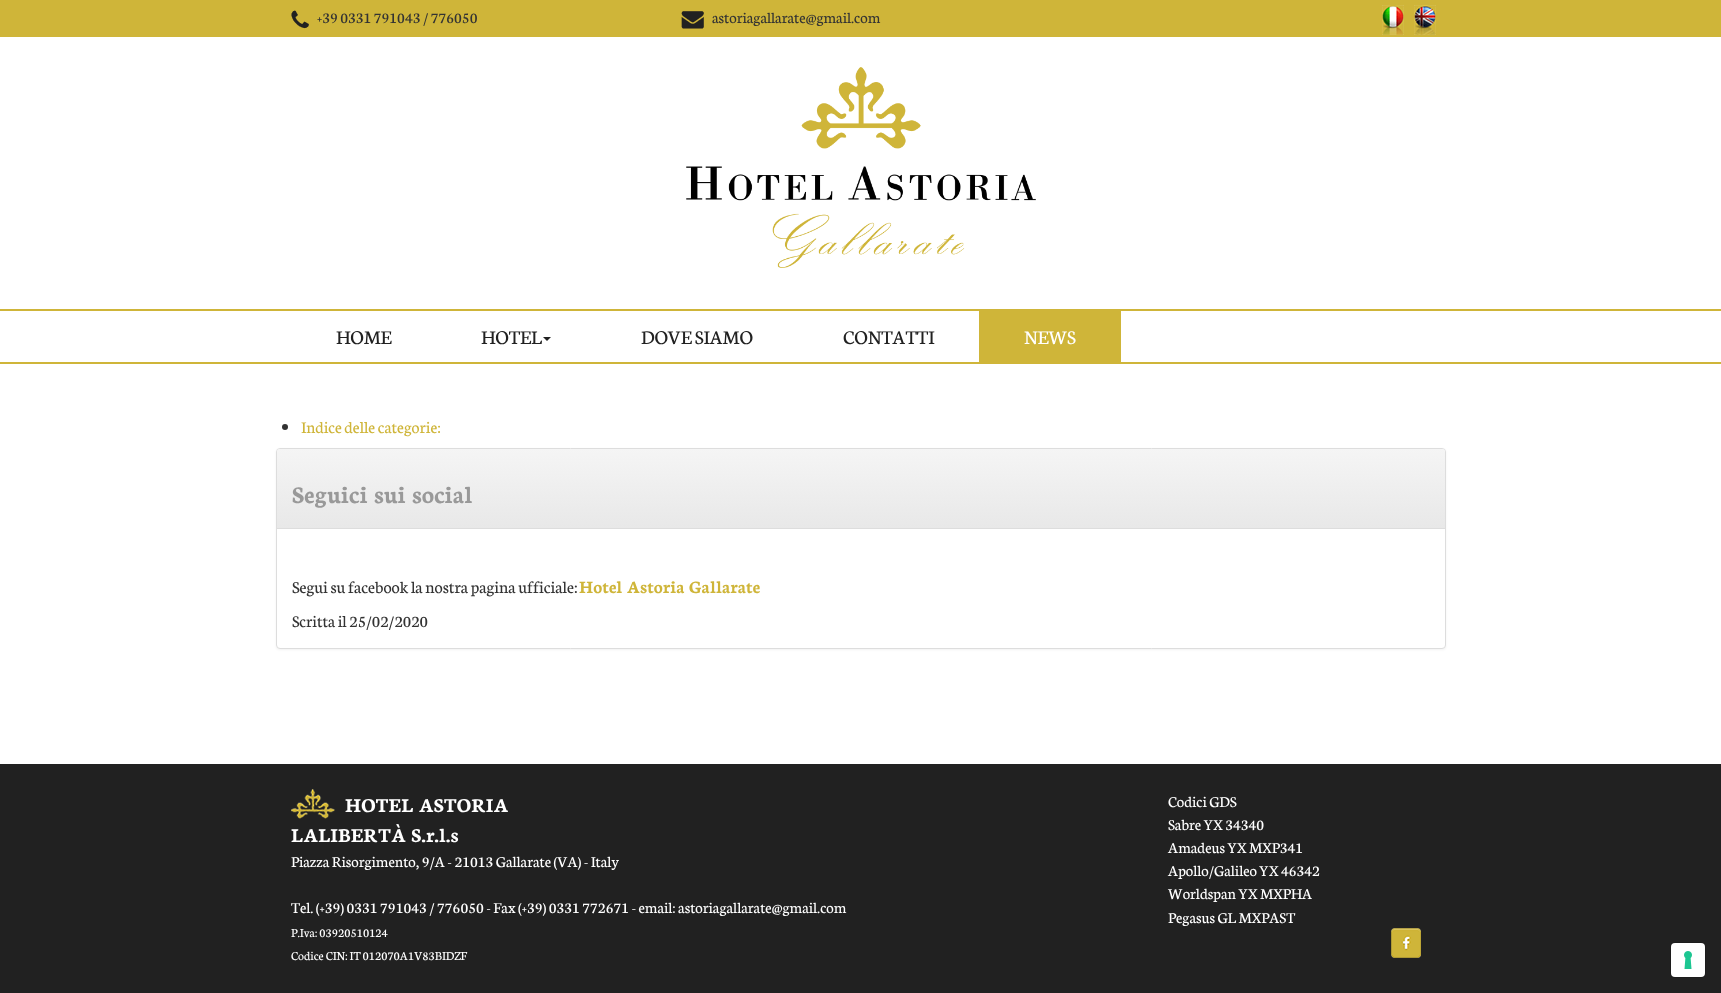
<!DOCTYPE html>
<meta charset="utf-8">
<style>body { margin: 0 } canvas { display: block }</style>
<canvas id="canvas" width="1721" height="993"></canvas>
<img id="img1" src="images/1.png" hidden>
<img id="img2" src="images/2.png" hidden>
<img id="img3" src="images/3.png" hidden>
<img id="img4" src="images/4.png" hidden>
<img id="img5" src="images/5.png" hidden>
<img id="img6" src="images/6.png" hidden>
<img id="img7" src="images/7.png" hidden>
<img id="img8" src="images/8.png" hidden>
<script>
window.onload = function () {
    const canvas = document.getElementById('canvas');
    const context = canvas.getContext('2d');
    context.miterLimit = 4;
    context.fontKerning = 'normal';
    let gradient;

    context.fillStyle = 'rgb(255, 255, 255)';
    context.fillRect(0, 0, 1721, 993);
    context.fillStyle = 'rgb(207, 181, 57)';
    context.fillRect(0, 0, 1721, 37);
    context.drawImage(document.getElementById('img1'), 291, 10, 18, 19);
    context.drawImage(document.getElementById('img2'), 681, 11, 23, 18);
    context.drawImage(document.getElementById('img3'), 1382, 5, 22, 30);
    context.drawImage(document.getElementById('img4'), 1414, 5, 22, 30);
    context.drawImage(document.getElementById('img5'), 686, 67, 350, 201);
    context.fillRect(0, 309, 1721, 2);
    context.fillRect(0, 362, 1721, 2);
    context.fillStyle = 'rgb(33, 33, 33)';
    context.beginPath();
    context.moveTo(543, 337);
    context.lineTo(551, 337);
    context.lineTo(547, 341);
    context.closePath();
    context.fill();
    context.fillStyle = 'rgb(207, 181, 57)';
    context.fillRect(979, 311, 142, 51);
    context.fillStyle = 'rgb(51, 51, 51)';
    context.beginPath();
    context.arc(285, 427, 3, 0, 2 * Math.PI);
    context.fill();
    context.fillStyle = 'rgba(0, 0, 0, 0.05)';
    context.filter = 'blur(1px)';
    context.beginPath();
    context.roundRect(276, 449, 1170, 201, 4);
    context.fill();
    context.filter = 'none';
    context.fillStyle = 'rgb(255, 255, 255)';
    context.beginPath();
    context.roundRect(276.5, 448.5, 1169, 200, 3.5);
    context.fill();
    context.strokeStyle = 'rgb(221, 221, 221)';
    context.stroke();
    gradient = context.createLinearGradient(861, 449, 861, 528);
    gradient.addColorStop(0, 'rgb(245, 245, 245)');
    gradient.addColorStop(1, 'rgb(232, 232, 232)');
    context.fillStyle = gradient;
    context.beginPath();
    context.roundRect(277, 449, 1168, 79, [3, 3, 0, 0]);
    context.fill();
    context.fillStyle = 'rgb(221, 221, 221)';
    context.fillRect(277, 528, 1168, 1);
    context.fillStyle = 'rgb(33, 33, 33)';
    context.fillRect(0, 764, 1721, 229);
    context.drawImage(document.getElementById('img6'), 291, 789, 44, 30);
    context.drawImage(document.getElementById('img7'), 1391, 928, 30, 30);
    context.beginPath();
    context.roundRect(1670.5, 942.5, 35, 35, 4.5);
    context.strokeStyle = 'rgb(28, 28, 28)';
    context.stroke();
    context.fillStyle = 'rgb(255, 255, 255)';
    context.beginPath();
    context.roundRect(1671, 943, 34, 34, 4);
    context.fill();
    context.drawImage(document.getElementById('img8'), 1684, 951, 8, 18);
    context.font = '16.25px Neuton';
    context.fillStyle = 'rgb(51, 51, 51)';
    context.fillText('+39 0331 791043 / 776050', 317, 23);
    context.fillText('astoriagallarate@gmail.com', 712, 23);
    context.font = '20.75px Neuton';
    context.fillStyle = 'rgb(33, 33, 33)';
    context.fillText('HOME', 336, 344);
    context.fillText('HOTEL', 481, 344);
    context.fillText('DOVE SIAMO', 641, 344);
    context.fillText('CONTATTI', 843, 344);
    context.fillStyle = 'rgb(255, 255, 255)';
    context.fillText('NEWS', 1024, 344);
    context.font = '17.5px Neuton';
    context.fillStyle = 'rgb(207, 181, 57)';
    context.fillText('Indice delle categorie:', 301, 433);
    context.font = 'bold 25.5px Neuton';
    context.fillStyle = 'rgb(153, 153, 153)';
    context.fillText('Seguici sui social', 292, 503);
    context.font = '17.9px Neuton';
    context.fillStyle = 'rgb(51, 51, 51)';
    context.fillText('Segui su facebook la nostra pagina ufficiale:', 292, 593);
    context.font = 'bold 18.5px Neuton';
    context.fillStyle = 'rgb(207, 181, 57)';
    context.fillText('Hotel Astoria Gallarate', 579, 593);
    context.font = '17.5px Neuton';
    context.fillStyle = 'rgb(51, 51, 51)';
    context.fillText('Scritta il 25/02/2020', 292, 627);
    context.font = 'bold 21px Neuton';
    context.fillStyle = 'rgb(255, 255, 255)';
    context.fillText('HOTEL ASTORIA', 345, 812);
    context.fillText('LALIBERTÀ S.r.l.s', 291, 842);
    context.font = '16.25px Neuton';
    context.fillText('Piazza Risorgimento, 9/A - 21013 Gallarate (VA) - Italy', 291, 867);
    context.fillText('Tel. (+39) 0331 791043 / 776050 - Fax (+39) 0331 772671 - email: astoriagallarate@gmail.com', 291, 913);
    context.font = '13px Neuton';
    context.fillText('P.Iva: 03920510124', 291, 937);
    context.fillText('Codice CIN: IT 012070A1V83BIDZF', 291, 960);
    context.font = '16.25px Neuton';
    context.fillText('Codici GDS', 1168, 807);
    context.fillText('Sabre YX 34340', 1168, 830);
    context.fillText('Amadeus YX MXP341', 1168, 853);
    context.fillText('Apollo/Galileo YX 46342', 1168, 876);
    context.fillText('Worldspan YX MXPHA', 1168, 899);
    context.fillText('Pegasus GL MXPAST', 1168, 923);
};
</script>
